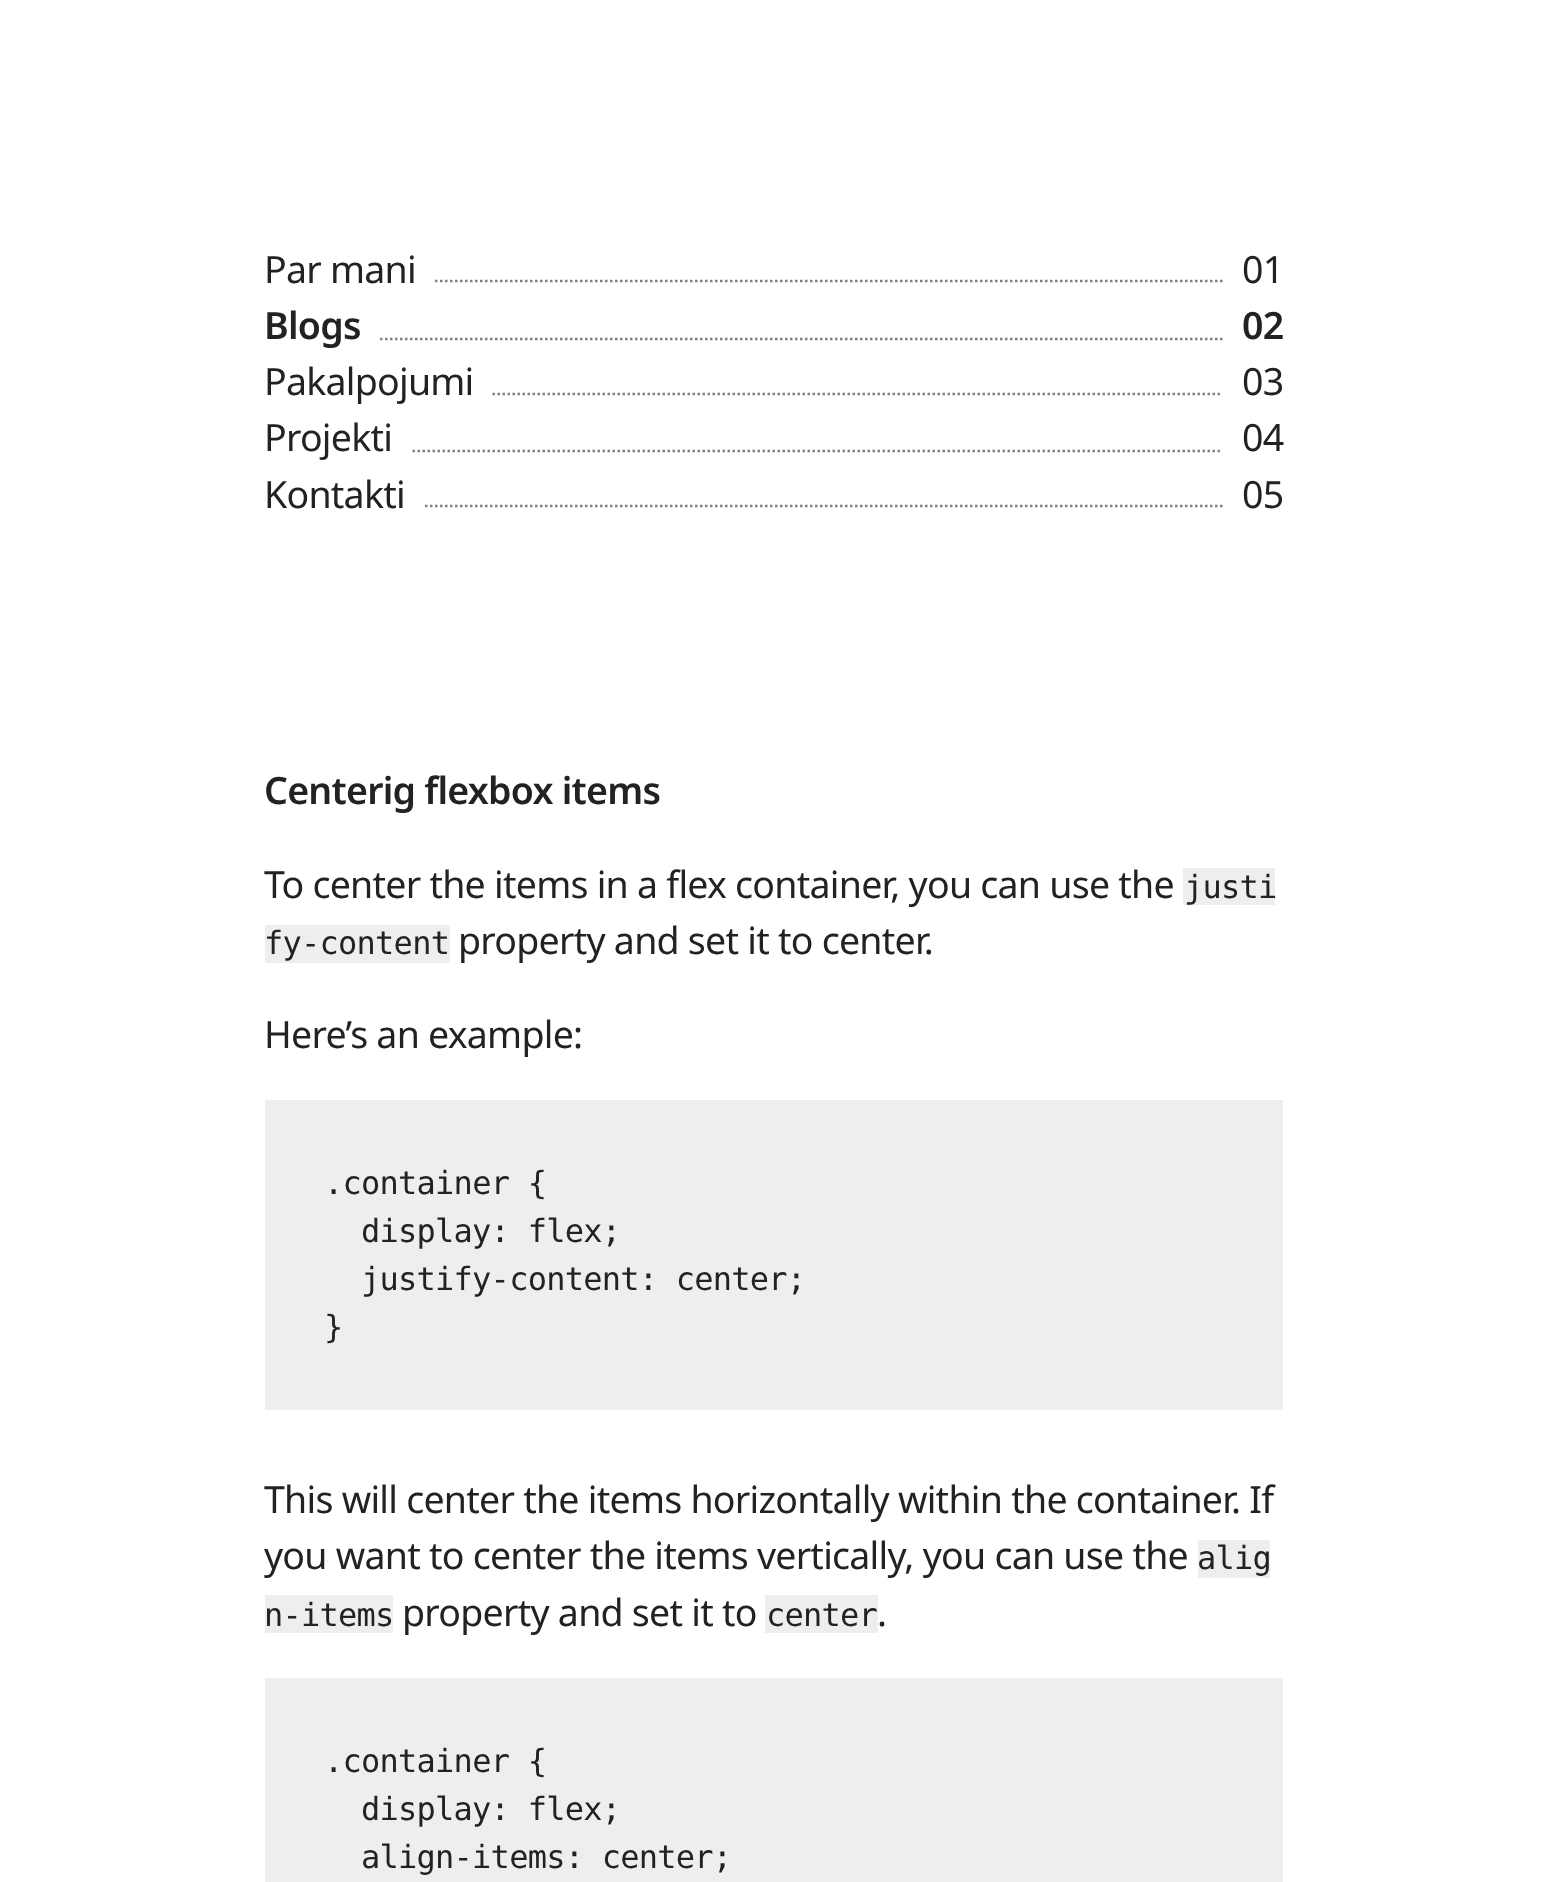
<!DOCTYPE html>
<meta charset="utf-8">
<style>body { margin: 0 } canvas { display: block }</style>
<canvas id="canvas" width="1547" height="1882"></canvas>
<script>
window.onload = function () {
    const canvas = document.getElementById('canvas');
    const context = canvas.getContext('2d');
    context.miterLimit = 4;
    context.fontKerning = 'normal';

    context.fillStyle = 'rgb(255, 255, 255)';
    context.fillRect(0, 0, 1547, 1882);
    context.beginPath();
    context.moveTo(435, 281);
    context.lineTo(1222.5, 281);
    context.strokeStyle = 'rgb(128, 128, 128)';
    context.lineWidth = 2.5;
    context.setLineDash([2.5, 2.5]);
    context.stroke();
    context.beginPath();
    context.moveTo(380, 339);
    context.lineTo(1222.5, 339);
    context.stroke();
    context.beginPath();
    context.moveTo(492.5, 394);
    context.lineTo(1222.5, 394);
    context.stroke();
    context.beginPath();
    context.moveTo(412.5, 451);
    context.lineTo(1222.5, 451);
    context.stroke();
    context.beginPath();
    context.moveTo(425, 506);
    context.lineTo(1222.5, 506);
    context.stroke();
    context.fillStyle = 'rgb(238, 238, 238)';
    context.fillRect(1183, 868, 92, 37);
    context.fillRect(265, 925, 185, 38);
    context.fillRect(265, 1100, 1018, 310);
    context.fillRect(1198, 1540, 72, 38);
    context.fillRect(265, 1595, 128, 38);
    context.fillRect(765, 1595, 113, 38);
    context.fillRect(265, 1678, 1018, 204);
    context.letterSpacing = '-0.75px';
    context.font = '37.5px Noto Sans';
    context.fillStyle = 'rgb(34, 34, 34)';
    context.fillText('Par mani', 264, 283);
    context.fillText('01', 1242, 283);
    context.font = '600 37.5px Noto Sans';
    context.fillText('Blogs', 264, 339);
    context.fillText('02', 1242, 339);
    context.font = '37.5px Noto Sans';
    context.fillText('Pakalpojumi', 264, 395);
    context.fillText('03', 1242, 395);
    context.fillText('Projekti', 264, 451);
    context.fillText('04', 1242, 451);
    context.fillText('Kontakti', 264, 508);
    context.fillText('05', 1242, 508);
    context.font = '600 37.5px Noto Sans';
    context.fillText('Centerig flexbox items', 264, 804);
    context.font = '37.5px Noto Sans';
    context.fillText('To center the items in a flex container, you can use the', 264, 898);
    context.font = '32px DejaVu Sans Mono';
    context.fillText('justi', 1184, 898);
    context.fillText('fy-content', 264, 954);
    context.font = '37.5px Noto Sans';
    context.fillText('property and set it to center.', 458, 954);
    context.fillText('Here’s an example:', 264, 1048);
    context.font = '32px DejaVu Sans Mono';
    context.fillText('.container {', 324, 1194);
    context.fillText('display: flex;', 361, 1242);
    context.fillText('justify-content: center;', 361, 1290);
    context.fillText('}', 324, 1338);
    context.font = '37.5px Noto Sans';
    context.fillText('This will center the items horizontally within the container. If', 264, 1513);
    context.fillText('you want to center the items vertically, you can use the', 264, 1569);
    context.font = '32px DejaVu Sans Mono';
    context.fillText('alig', 1197, 1569);
    context.fillText('n-items', 264, 1626);
    context.font = '37.5px Noto Sans';
    context.fillText('property and set it to', 402, 1626);
    context.font = '32px DejaVu Sans Mono';
    context.fillText('center', 766, 1626);
    context.font = '37.5px Noto Sans';
    context.fillText('.', 877, 1626);
    context.font = '32px DejaVu Sans Mono';
    context.fillText('.container {', 324, 1772);
    context.fillText('display: flex;', 361, 1820);
    context.fillText('align-items: center;', 361, 1868);
};
</script>
